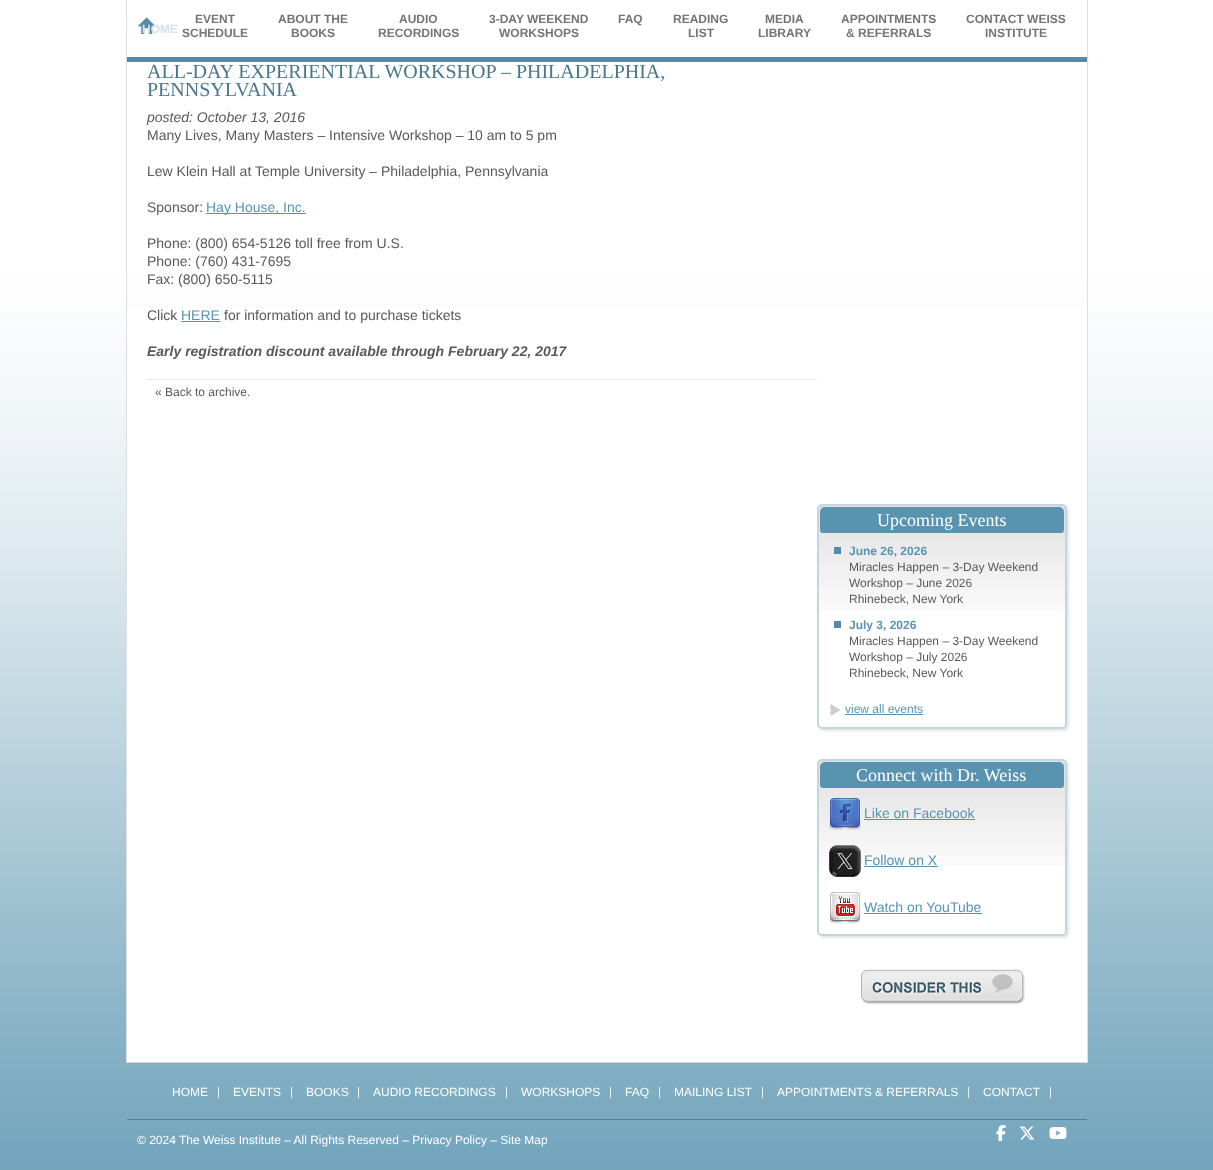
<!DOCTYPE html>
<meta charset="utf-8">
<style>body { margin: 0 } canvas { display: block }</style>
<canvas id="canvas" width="1213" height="1170"></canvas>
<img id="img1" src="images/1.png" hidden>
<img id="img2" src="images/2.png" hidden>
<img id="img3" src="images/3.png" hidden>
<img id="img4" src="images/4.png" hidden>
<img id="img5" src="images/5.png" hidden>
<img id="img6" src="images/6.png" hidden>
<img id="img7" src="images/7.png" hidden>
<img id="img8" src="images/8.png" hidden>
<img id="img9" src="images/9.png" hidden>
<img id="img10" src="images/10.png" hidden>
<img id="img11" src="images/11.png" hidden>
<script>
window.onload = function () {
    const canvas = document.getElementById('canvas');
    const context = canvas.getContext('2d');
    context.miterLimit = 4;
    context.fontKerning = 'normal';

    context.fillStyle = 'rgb(255, 255, 255)';
    context.fillRect(0, 0, 1213, 1170);
    context.drawImage(document.getElementById('img1'), 0, 0, 1213, 1170);
    context.fillRect(127, 307, 960, 755);
    context.strokeStyle = 'rgb(221, 221, 221)';
    context.strokeRect(126.5, -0.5, 961, 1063);
    context.fillStyle = 'rgb(84, 138, 163)';
    context.fillRect(127, 57, 960, 5);
    context.drawImage(document.getElementById('img2'), 138, 17, 18, 17);
    context.fillStyle = 'rgb(88, 148, 175)';
    context.fillRect(206, 213, 100, 1);
    context.fillRect(181, 321, 39, 1);
    context.fillStyle = 'rgb(231, 231, 231)';
    context.fillRect(147, 379, 670, 1);
    context.fillStyle = 'rgb(229, 229, 229)';
    context.filter = 'blur(1px)';
    context.beginPath();
    context.roundRect(819, 506, 250, 225, 5);
    context.fill();
    context.filter = 'none';
    context.fillStyle = 'rgb(255, 255, 255)';
    context.beginPath();
    context.roundRect(817, 504, 250, 225, 5);
    context.fill();
    context.drawImage(document.getElementById('img3'), 817, 506, 250, 105);
    context.beginPath();
    context.roundRect(818, 505, 248, 223, 4);
    context.strokeStyle = 'rgb(194, 214, 223)';
    context.lineWidth = 2;
    context.stroke();
    context.fillStyle = 'rgb(88, 148, 175)';
    context.beginPath();
    context.roundRect(820, 507, 244, 26, [5, 5, 3, 3]);
    context.fill();
    context.fillStyle = 'rgb(84, 138, 163)';
    context.fillRect(834, 547, 7, 7);
    context.fillRect(834, 621, 7, 7);
    context.drawImage(document.getElementById('img4'), 830, 704, 11, 12);
    context.fillStyle = 'rgb(88, 148, 175)';
    context.fillRect(845, 714, 78, 1);
    context.fillStyle = 'rgb(229, 229, 229)';
    context.filter = 'blur(1px)';
    context.beginPath();
    context.roundRect(819, 761, 250, 177, 5);
    context.fill();
    context.filter = 'none';
    context.fillStyle = 'rgb(255, 255, 255)';
    context.beginPath();
    context.roundRect(817, 759, 250, 177, 5);
    context.fill();
    context.drawImage(document.getElementById('img3'), 817, 761, 250, 105);
    context.beginPath();
    context.roundRect(818, 760, 248, 175, 4);
    context.stroke();
    context.fillStyle = 'rgb(88, 148, 175)';
    context.beginPath();
    context.roundRect(820, 762, 244, 26, [5, 5, 3, 3]);
    context.fill();
    context.drawImage(document.getElementById('img5'), 829, 798, 32, 32);
    context.fillRect(864, 819, 111, 1);
    context.drawImage(document.getElementById('img6'), 829, 845, 32, 32);
    context.fillRect(864, 866, 74, 1);
    context.drawImage(document.getElementById('img7'), 829, 892, 32, 32);
    context.fillRect(864, 913, 118, 1);
    context.drawImage(document.getElementById('img8'), 861, 969, 164, 36);
    context.fillStyle = 'rgb(231, 243, 253)';
    context.fillRect(218, 1087, 1, 11);
    context.fillRect(291, 1087, 1, 11);
    context.fillRect(358, 1087, 1, 11);
    context.fillRect(506, 1087, 1, 11);
    context.fillRect(610, 1087, 1, 11);
    context.fillRect(659, 1087, 1, 11);
    context.fillRect(762, 1087, 1, 11);
    context.fillRect(968, 1087, 1, 11);
    context.fillRect(1050, 1087, 1, 11);
    context.fillStyle = 'rgb(76, 129, 152)';
    context.fillRect(127, 1119, 960, 1);
    context.drawImage(document.getElementById('img9'), 996, 1125, 10, 16);
    context.drawImage(document.getElementById('img10'), 1020, 1126, 15, 14);
    context.drawImage(document.getElementById('img11'), 1049, 1127, 18, 12);
    context.font = 'bold 12px Liberation Sans';
    context.fillStyle = 'rgb(212, 226, 232)';
    context.fillText('HOME', 142, 33);
    context.fillStyle = 'rgb(116, 116, 116)';
    context.fillText('EVENT', 195, 23);
    context.fillText('SCHEDULE', 182, 37);
    context.fillText('ABOUT THE', 278, 23);
    context.fillText('BOOKS', 291, 37);
    context.fillText('AUDIO', 399, 23);
    context.fillText('RECORDINGS', 378, 37);
    context.fillText('3-DAY WEEKEND', 489, 23);
    context.fillText('WORKSHOPS', 499, 37);
    context.fillText('FAQ', 618, 23);
    context.fillText('READING', 673, 23);
    context.fillText('LIST', 688, 37);
    context.fillText('MEDIA', 765, 23);
    context.fillText('LIBRARY', 758, 37);
    context.fillText('APPOINTMENTS', 841, 23);
    context.fillText('& REFERRALS', 846, 37);
    context.fillText('CONTACT WEISS', 966, 23);
    context.fillText('INSTITUTE', 985, 37);
    context.font = '20px Liberation Serif';
    context.fillStyle = 'rgb(72, 119, 141)';
    context.fillText('ALL-DAY EXPERIENTIAL WORKSHOP – PHILADELPHIA,', 147, 78);
    context.fillText('PENNSYLVANIA', 147, 96);
    context.font = 'italic 14px Liberation Sans';
    context.fillStyle = 'rgb(89, 89, 89)';
    context.fillText('posted: October 13, 2016', 147, 122);
    context.font = '14px Liberation Sans';
    context.fillText('Many Lives, Many Masters – Intensive Workshop – 10 am to 5 pm', 147, 140);
    context.fillText('Lew Klein Hall at Temple University – Philadelphia, Pennsylvania', 147, 176);
    context.fillText('Sponsor:', 147, 212);
    context.fillStyle = 'rgb(88, 148, 175)';
    context.fillText('Hay House, Inc.', 206, 212);
    context.fillStyle = 'rgb(89, 89, 89)';
    context.fillText('Phone: (800) 654-5126 toll free from U.S.', 147, 248);
    context.fillText('Phone: (760) 431-7695', 147, 266);
    context.fillText('Fax: (800) 650-5115', 147, 284);
    context.fillText('Click', 147, 320);
    context.fillStyle = 'rgb(88, 148, 175)';
    context.fillText('HERE', 181, 320);
    context.fillStyle = 'rgb(89, 89, 89)';
    context.fillText('for information and to purchase tickets', 224, 320);
    context.font = 'italic bold 14px Liberation Sans';
    context.fillText('Early registration discount available through February 22, 2017', 147, 356);
    context.font = '12px Liberation Sans';
    context.fillText('« Back to archive.', 155, 396);
    context.font = '18px Liberation Serif';
    context.fillStyle = 'rgb(255, 255, 255)';
    context.fillText('Upcoming Events', 877, 526);
    context.font = 'bold 12px Liberation Sans';
    context.fillStyle = 'rgb(88, 148, 175)';
    context.fillText('June 26, 2026', 849, 555);
    context.font = '12px Liberation Sans';
    context.fillStyle = 'rgb(89, 89, 89)';
    context.fillText('Miracles Happen – 3-Day Weekend', 849, 571);
    context.fillText('Workshop – June 2026', 849, 587);
    context.fillText('Rhinebeck, New York', 849, 603);
    context.font = 'bold 12px Liberation Sans';
    context.fillStyle = 'rgb(88, 148, 175)';
    context.fillText('July 3, 2026', 849, 629);
    context.font = '12px Liberation Sans';
    context.fillStyle = 'rgb(89, 89, 89)';
    context.fillText('Miracles Happen – 3-Day Weekend', 849, 645);
    context.fillText('Workshop – July 2026', 849, 661);
    context.fillText('Rhinebeck, New York', 849, 677);
    context.fillStyle = 'rgb(88, 148, 175)';
    context.fillText('view all events', 845, 713);
    context.font = '18px Liberation Serif';
    context.fillStyle = 'rgb(255, 255, 255)';
    context.fillText('Connect with Dr. Weiss', 856, 781);
    context.font = '14px Liberation Sans';
    context.fillStyle = 'rgb(88, 148, 175)';
    context.fillText('Like on Facebook', 864, 818);
    context.fillText('Follow on X', 864, 865);
    context.fillText('Watch on YouTube', 864, 912);
    context.font = '12px Liberation Sans';
    context.fillStyle = 'rgb(255, 255, 255)';
    context.fillText('HOME', 172, 1096);
    context.fillText('EVENTS', 233, 1096);
    context.fillText('BOOKS', 306, 1096);
    context.fillText('AUDIO RECORDINGS', 373, 1096);
    context.fillText('WORKSHOPS', 521, 1096);
    context.fillText('FAQ', 625, 1096);
    context.fillText('MAILING LIST', 674, 1096);
    context.fillText('APPOINTMENTS & REFERRALS', 777, 1096);
    context.fillText('CONTACT', 983, 1096);
    context.fillText('© 2024 The Weiss Institute – All Rights Reserved – Privacy Policy – Site Map', 137, 1144);
};
</script>
